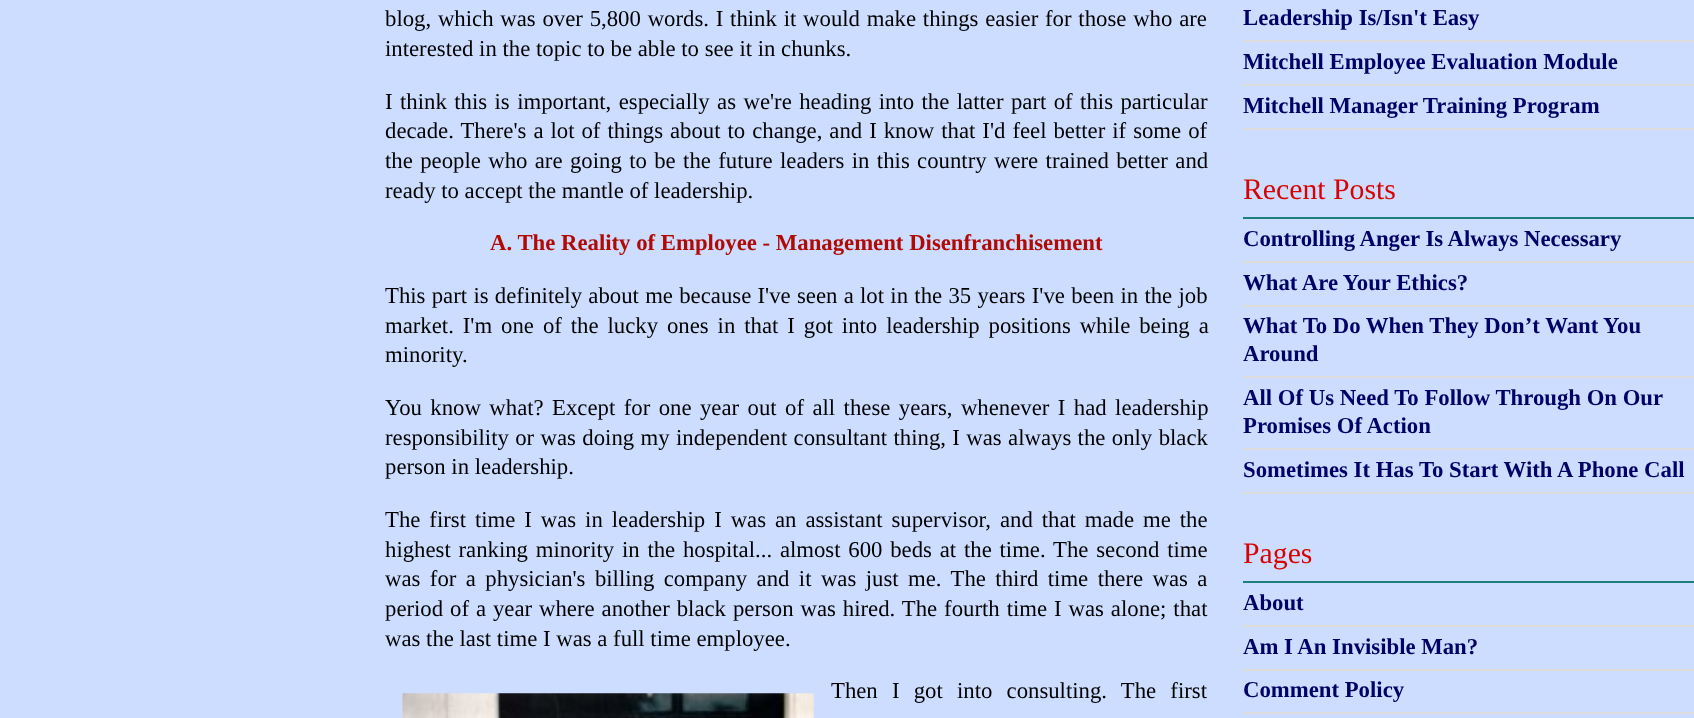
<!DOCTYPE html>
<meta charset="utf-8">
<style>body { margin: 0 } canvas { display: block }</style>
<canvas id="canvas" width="1694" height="718"></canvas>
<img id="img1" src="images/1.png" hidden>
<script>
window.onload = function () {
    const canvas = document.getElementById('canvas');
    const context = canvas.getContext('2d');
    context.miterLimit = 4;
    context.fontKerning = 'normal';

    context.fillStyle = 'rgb(204, 221, 255)';
    context.fillRect(0, 0, 1694, 718);
    context.drawImage(document.getElementById('img1'), 402, 693, 412, 25);
    context.fillStyle = 'rgb(221, 221, 221)';
    context.fillRect(1243, 40, 451, 2);
    context.fillRect(1243, 84, 451, 2);
    context.fillRect(1243, 128, 451, 2);
    context.fillStyle = 'rgb(32, 127, 123)';
    context.fillRect(1243, 217, 451, 2);
    context.fillStyle = 'rgb(221, 221, 221)';
    context.fillRect(1243, 261, 451, 2);
    context.fillRect(1243, 305, 451, 2);
    context.fillRect(1243, 376, 451, 2);
    context.fillRect(1243, 448, 451, 2);
    context.fillRect(1243, 492, 451, 2);
    context.fillStyle = 'rgb(32, 127, 123)';
    context.fillRect(1243, 581, 451, 2);
    context.fillStyle = 'rgb(221, 221, 221)';
    context.fillRect(1243, 625, 451, 2);
    context.fillRect(1243, 669, 451, 2);
    context.fillRect(1243, 712, 451, 2);
    context.wordSpacing = '1.1px';
    context.font = '22.75px Liberation Serif';
    context.fillStyle = 'rgb(0, 0, 0)';
    context.fillText('blog, which was over 5,800 words. I think it would make things easier for those who are', 385, 26);
    context.wordSpacing = '0px';
    context.fillText('interested in the topic to be able to see it in chunks.', 385, 56);
    context.wordSpacing = '1.75px';
    context.fillText('I think this is important, especially as we\'re heading into the latter part of this particular', 385, 109);
    context.wordSpacing = '1.3px';
    context.fillText('decade. There\'s a lot of things about to change, and I know that I\'d feel better if some of', 385, 138);
    context.wordSpacing = '1.7px';
    context.fillText('the people who are going to be the future leaders in this country were trained better and', 385, 168);
    context.wordSpacing = '0px';
    context.fillText('ready to accept the mantle of leadership.', 385, 198);
    context.font = 'bold 22.75px Liberation Serif';
    context.fillStyle = 'rgb(176, 10, 5)';
    context.fillText('A. The Reality of Employee - Management Disenfranchisement', 490, 250);
    context.wordSpacing = '0.6px';
    context.font = '22.75px Liberation Serif';
    context.fillStyle = 'rgb(0, 0, 0)';
    context.fillText('This part is definitely about me because I\'ve seen a lot in the 35 years I\'ve been in the job', 385, 303);
    context.wordSpacing = '3.25px';
    context.fillText('market. I\'m one of the lucky ones in that I got into leadership positions while being a', 385, 333);
    context.wordSpacing = '0px';
    context.fillText('minority.', 385, 362);
    context.wordSpacing = '2.75px';
    context.fillText('You know what? Except for one year out of all these years, whenever I had leadership', 385, 415);
    context.wordSpacing = '0.7px';
    context.fillText('responsibility or was doing my independent consultant thing, I was always the only black', 385, 445);
    context.wordSpacing = '0px';
    context.fillText('person in leadership.', 385, 474);
    context.wordSpacing = '3.25px';
    context.fillText('The first time I was in leadership I was an assistant supervisor, and that made me the', 385, 527);
    context.wordSpacing = '2.1px';
    context.fillText('highest ranking minority in the hospital... almost 600 beds at the time. The second time', 385, 557);
    context.wordSpacing = '3.75px';
    context.fillText('was for a physician\'s billing company and it was just me. The third time there was a', 385, 586);
    context.wordSpacing = '1.25px';
    context.fillText('period of a year where another black person was hired. The fourth time I was alone; that', 385, 616);
    context.wordSpacing = '0px';
    context.fillText('was the last time I was a full time employee.', 385, 646);
    context.wordSpacing = '8.5px';
    context.fillText('Then I got into consulting. The first', 831, 698);
    context.wordSpacing = '0px';
    context.font = 'bold 22.75px Liberation Serif';
    context.fillStyle = 'rgb(0, 0, 102)';
    context.fillText('Leadership Is/Isn\'t Easy', 1243, 25);
    context.fillText('Mitchell Employee Evaluation Module', 1243, 69);
    context.fillText('Mitchell Manager Training Program', 1243, 113);
    context.font = '29.75px Liberation Serif';
    context.fillStyle = 'rgb(217, 2, 2)';
    context.fillText('Recent Posts', 1243, 199);
    context.font = 'bold 22.75px Liberation Serif';
    context.fillStyle = 'rgb(0, 0, 102)';
    context.fillText('Controlling Anger Is Always Necessary', 1243, 246);
    context.fillText('What Are Your Ethics?', 1243, 290);
    context.fillText('What To Do When They Don’t Want You', 1243, 333);
    context.fillText('Around', 1243, 361);
    context.fillText('All Of Us Need To Follow Through On Our', 1243, 405);
    context.fillText('Promises Of Action', 1243, 433);
    context.fillText('Sometimes It Has To Start With A Phone Call', 1243, 477);
    context.font = '29.75px Liberation Serif';
    context.fillStyle = 'rgb(217, 2, 2)';
    context.fillText('Pages', 1243, 563);
    context.font = 'bold 22.75px Liberation Serif';
    context.fillStyle = 'rgb(0, 0, 102)';
    context.fillText('About', 1243, 610);
    context.fillText('Am I An Invisible Man?', 1243, 654);
    context.fillText('Comment Policy', 1243, 697);
};
</script>
